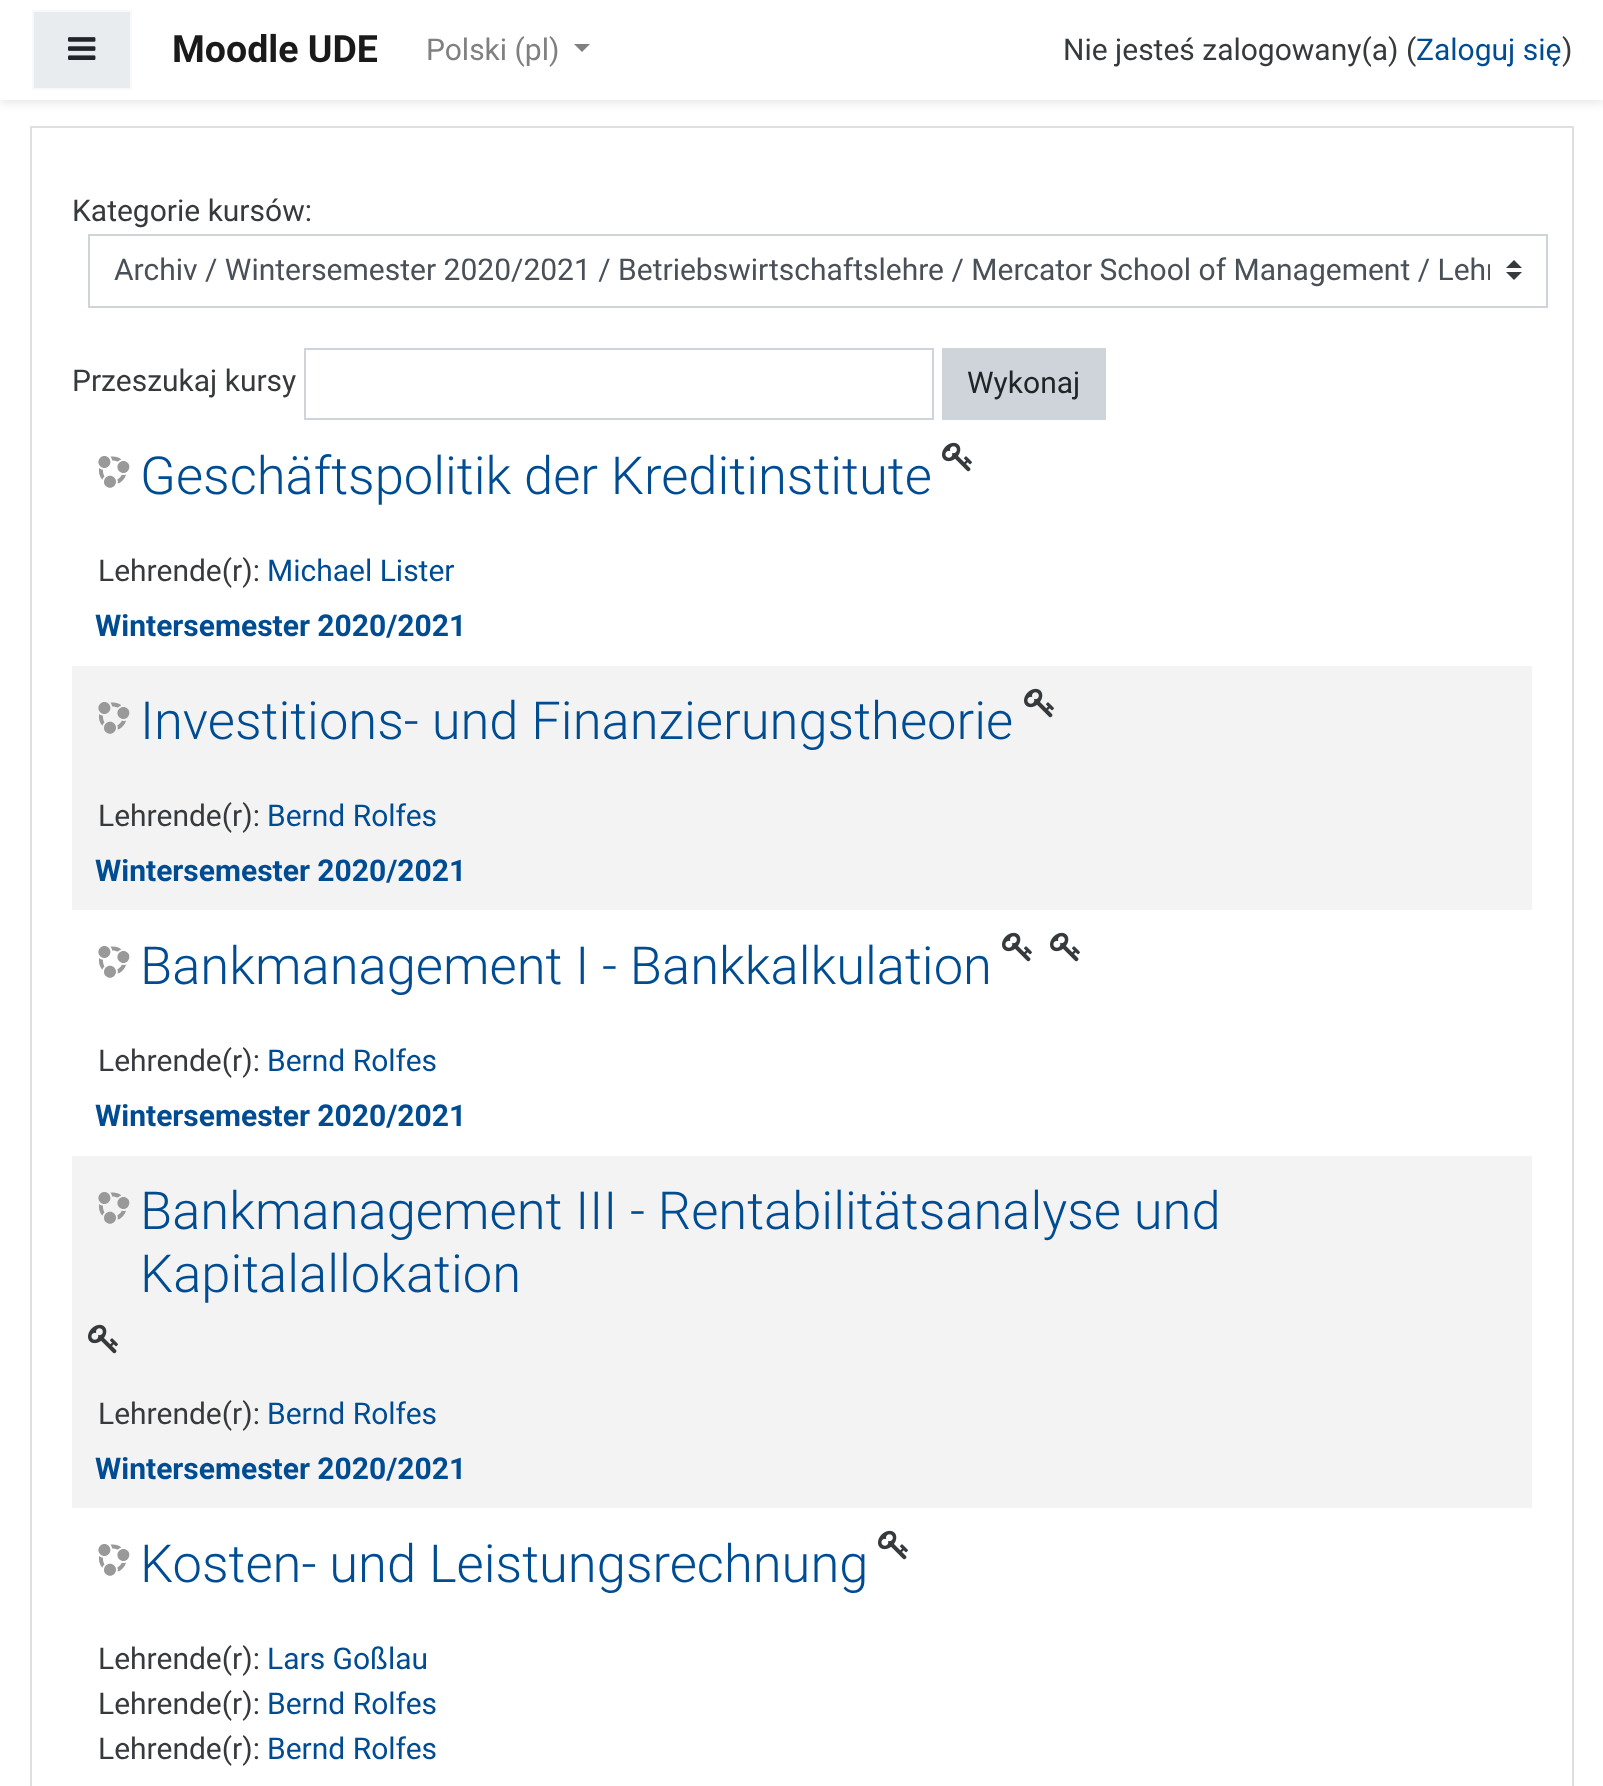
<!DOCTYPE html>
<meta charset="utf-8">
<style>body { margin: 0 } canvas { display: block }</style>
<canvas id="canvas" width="1603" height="1786"></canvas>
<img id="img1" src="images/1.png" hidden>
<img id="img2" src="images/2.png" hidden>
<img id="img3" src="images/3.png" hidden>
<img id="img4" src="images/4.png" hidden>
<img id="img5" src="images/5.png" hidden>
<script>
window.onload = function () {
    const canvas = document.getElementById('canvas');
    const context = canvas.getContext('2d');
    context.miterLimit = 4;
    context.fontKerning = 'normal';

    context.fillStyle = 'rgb(255, 255, 255)';
    context.fillRect(0, 0, 1603, 1786);
    context.fillStyle = 'rgba(0, 0, 0, 0.08)';
    context.filter = 'blur(4px)';
    context.beginPath();
    context.rect(0, 4, 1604, 100);
    context.fill();
    context.filter = 'none';
    context.fillStyle = 'rgb(255, 255, 255)';
    context.fillRect(0, 0, 1603, 100);
    context.fillStyle = 'rgb(233, 236, 239)';
    context.beginPath();
    context.rect(33, 11, 98, 78);
    context.fill();
    context.strokeStyle = 'rgb(248, 249, 250)';
    context.lineWidth = 2;
    context.stroke();
    context.drawImage(document.getElementById('img1'), 68, 37, 28, 23);
    context.fillStyle = 'rgb(128, 128, 128)';
    context.beginPath();
    context.moveTo(574, 44);
    context.lineTo(590, 44);
    context.lineTo(582, 52);
    context.closePath();
    context.fill();
    context.strokeStyle = 'rgb(223, 223, 223)';
    context.strokeRect(31, 127, 1542, 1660);
    context.fillStyle = 'rgb(55, 58, 60)';
    context.beginPath();
    context.moveTo(1514, 260);
    context.lineTo(1506, 268);
    context.lineTo(1522, 268);
    context.closePath();
    context.moveTo(1514, 280);
    context.lineTo(1506, 272);
    context.lineTo(1522, 272);
    context.closePath();
    context.fill();
    context.strokeStyle = 'rgb(206, 212, 218)';
    context.strokeRect(89, 235, 1458, 72);
    context.strokeRect(305, 349, 628, 70);
    context.fillStyle = 'rgb(206, 212, 218)';
    context.fillRect(942, 348, 164, 72);
    context.drawImage(document.getElementById('img2'), 98, 456, 32, 32);
    context.drawImage(document.getElementById('img3'), 942, 442, 30, 30);
    context.fillStyle = 'rgb(243, 243, 243)';
    context.fillRect(72, 666, 1460, 244);
    context.drawImage(document.getElementById('img4'), 98, 702, 32, 32);
    context.drawImage(document.getElementById('img5'), 1024, 688, 30, 30);
    context.drawImage(document.getElementById('img2'), 98, 946, 32, 32);
    context.drawImage(document.getElementById('img3'), 1002, 932, 30, 30);
    context.drawImage(document.getElementById('img3'), 1050, 932, 30, 30);
    context.fillRect(72, 1156, 1460, 352);
    context.drawImage(document.getElementById('img4'), 98, 1192, 32, 32);
    context.drawImage(document.getElementById('img5'), 88, 1324, 30, 30);
    context.drawImage(document.getElementById('img2'), 98, 1544, 32, 32);
    context.drawImage(document.getElementById('img3'), 878, 1530, 30, 30);
    context.font = 'bold 37.5px Roboto';
    context.fillStyle = 'rgb(26, 26, 26)';
    context.fillText('Moodle UDE', 172, 62);
    context.font = '30px Roboto';
    context.fillStyle = 'rgb(128, 128, 128)';
    context.fillText('Polski (pl)', 426, 60);
    context.fillStyle = 'rgb(55, 58, 60)';
    context.fillText('Nie jesteś zalogowany(a) (', 1063, 60);
    context.fillStyle = 'rgb(0, 76, 147)';
    context.fillText('Zaloguj się', 1416, 60);
    context.fillStyle = 'rgb(55, 58, 60)';
    context.fillText(')', 1562, 60);
    context.fillText('Kategorie kursów:', 72, 221);
    context.save();
    context.beginPath();
    context.rect(114, 248, 1376, 46);
    context.clip();
    context.fillStyle = 'rgb(73, 80, 87)';
    context.fillText('Archiv / Wintersemester 2020/2021 / Betriebswirtschaftslehre / Mercator School of Management / Lehr', 114, 280);
    context.restore();
    context.fillText('Przeszukaj kursy', 72, 391);
    context.fillStyle = 'rgb(33, 37, 41)';
    context.fillText('Wykonaj', 967, 393);
    context.font = '300 52.5px Roboto';
    context.fillStyle = 'rgb(0, 76, 147)';
    context.fillText('Geschäftspolitik der Kreditinstitute', 140, 494);
    context.font = '30px Roboto';
    context.fillStyle = 'rgb(55, 58, 60)';
    context.fillText('Lehrende(r):', 98, 581);
    context.fillStyle = 'rgb(0, 76, 147)';
    context.fillText('Michael Lister', 267, 581);
    context.font = 'bold 30px Roboto';
    context.fillText('Wintersemester 2020/2021', 95, 636);
    context.font = '300 52.5px Roboto';
    context.fillText('Investitions- und Finanzierungstheorie', 140, 739);
    context.font = '30px Roboto';
    context.fillStyle = 'rgb(55, 58, 60)';
    context.fillText('Lehrende(r):', 98, 826);
    context.fillStyle = 'rgb(0, 76, 147)';
    context.fillText('Bernd Rolfes', 267, 826);
    context.font = 'bold 30px Roboto';
    context.fillText('Wintersemester 2020/2021', 95, 881);
    context.font = '300 52.5px Roboto';
    context.fillText('Bankmanagement I - Bankkalkulation', 140, 984);
    context.font = '30px Roboto';
    context.fillStyle = 'rgb(55, 58, 60)';
    context.fillText('Lehrende(r):', 98, 1071);
    context.fillStyle = 'rgb(0, 76, 147)';
    context.fillText('Bernd Rolfes', 267, 1071);
    context.font = 'bold 30px Roboto';
    context.fillText('Wintersemester 2020/2021', 95, 1126);
    context.font = '300 52.5px Roboto';
    context.fillText('Bankmanagement III - Rentabilitätsanalyse und', 140, 1229);
    context.fillText('Kapitalallokation', 140, 1292);
    context.font = '30px Roboto';
    context.fillStyle = 'rgb(55, 58, 60)';
    context.fillText('Lehrende(r):', 98, 1424);
    context.fillStyle = 'rgb(0, 76, 147)';
    context.fillText('Bernd Rolfes', 267, 1424);
    context.font = 'bold 30px Roboto';
    context.fillText('Wintersemester 2020/2021', 95, 1479);
    context.font = '300 52.5px Roboto';
    context.fillText('Kosten- und Leistungsrechnung', 140, 1582);
    context.font = '30px Roboto';
    context.fillStyle = 'rgb(55, 58, 60)';
    context.fillText('Lehrende(r):', 98, 1669);
    context.fillStyle = 'rgb(0, 76, 147)';
    context.fillText('Lars Goßlau', 267, 1669);
    context.fillStyle = 'rgb(55, 58, 60)';
    context.fillText('Lehrende(r):', 98, 1714);
    context.fillStyle = 'rgb(0, 76, 147)';
    context.fillText('Bernd Rolfes', 267, 1714);
    context.fillStyle = 'rgb(55, 58, 60)';
    context.fillText('Lehrende(r):', 98, 1759);
    context.fillStyle = 'rgb(0, 76, 147)';
    context.fillText('Bernd Rolfes', 267, 1759);
};
</script>
